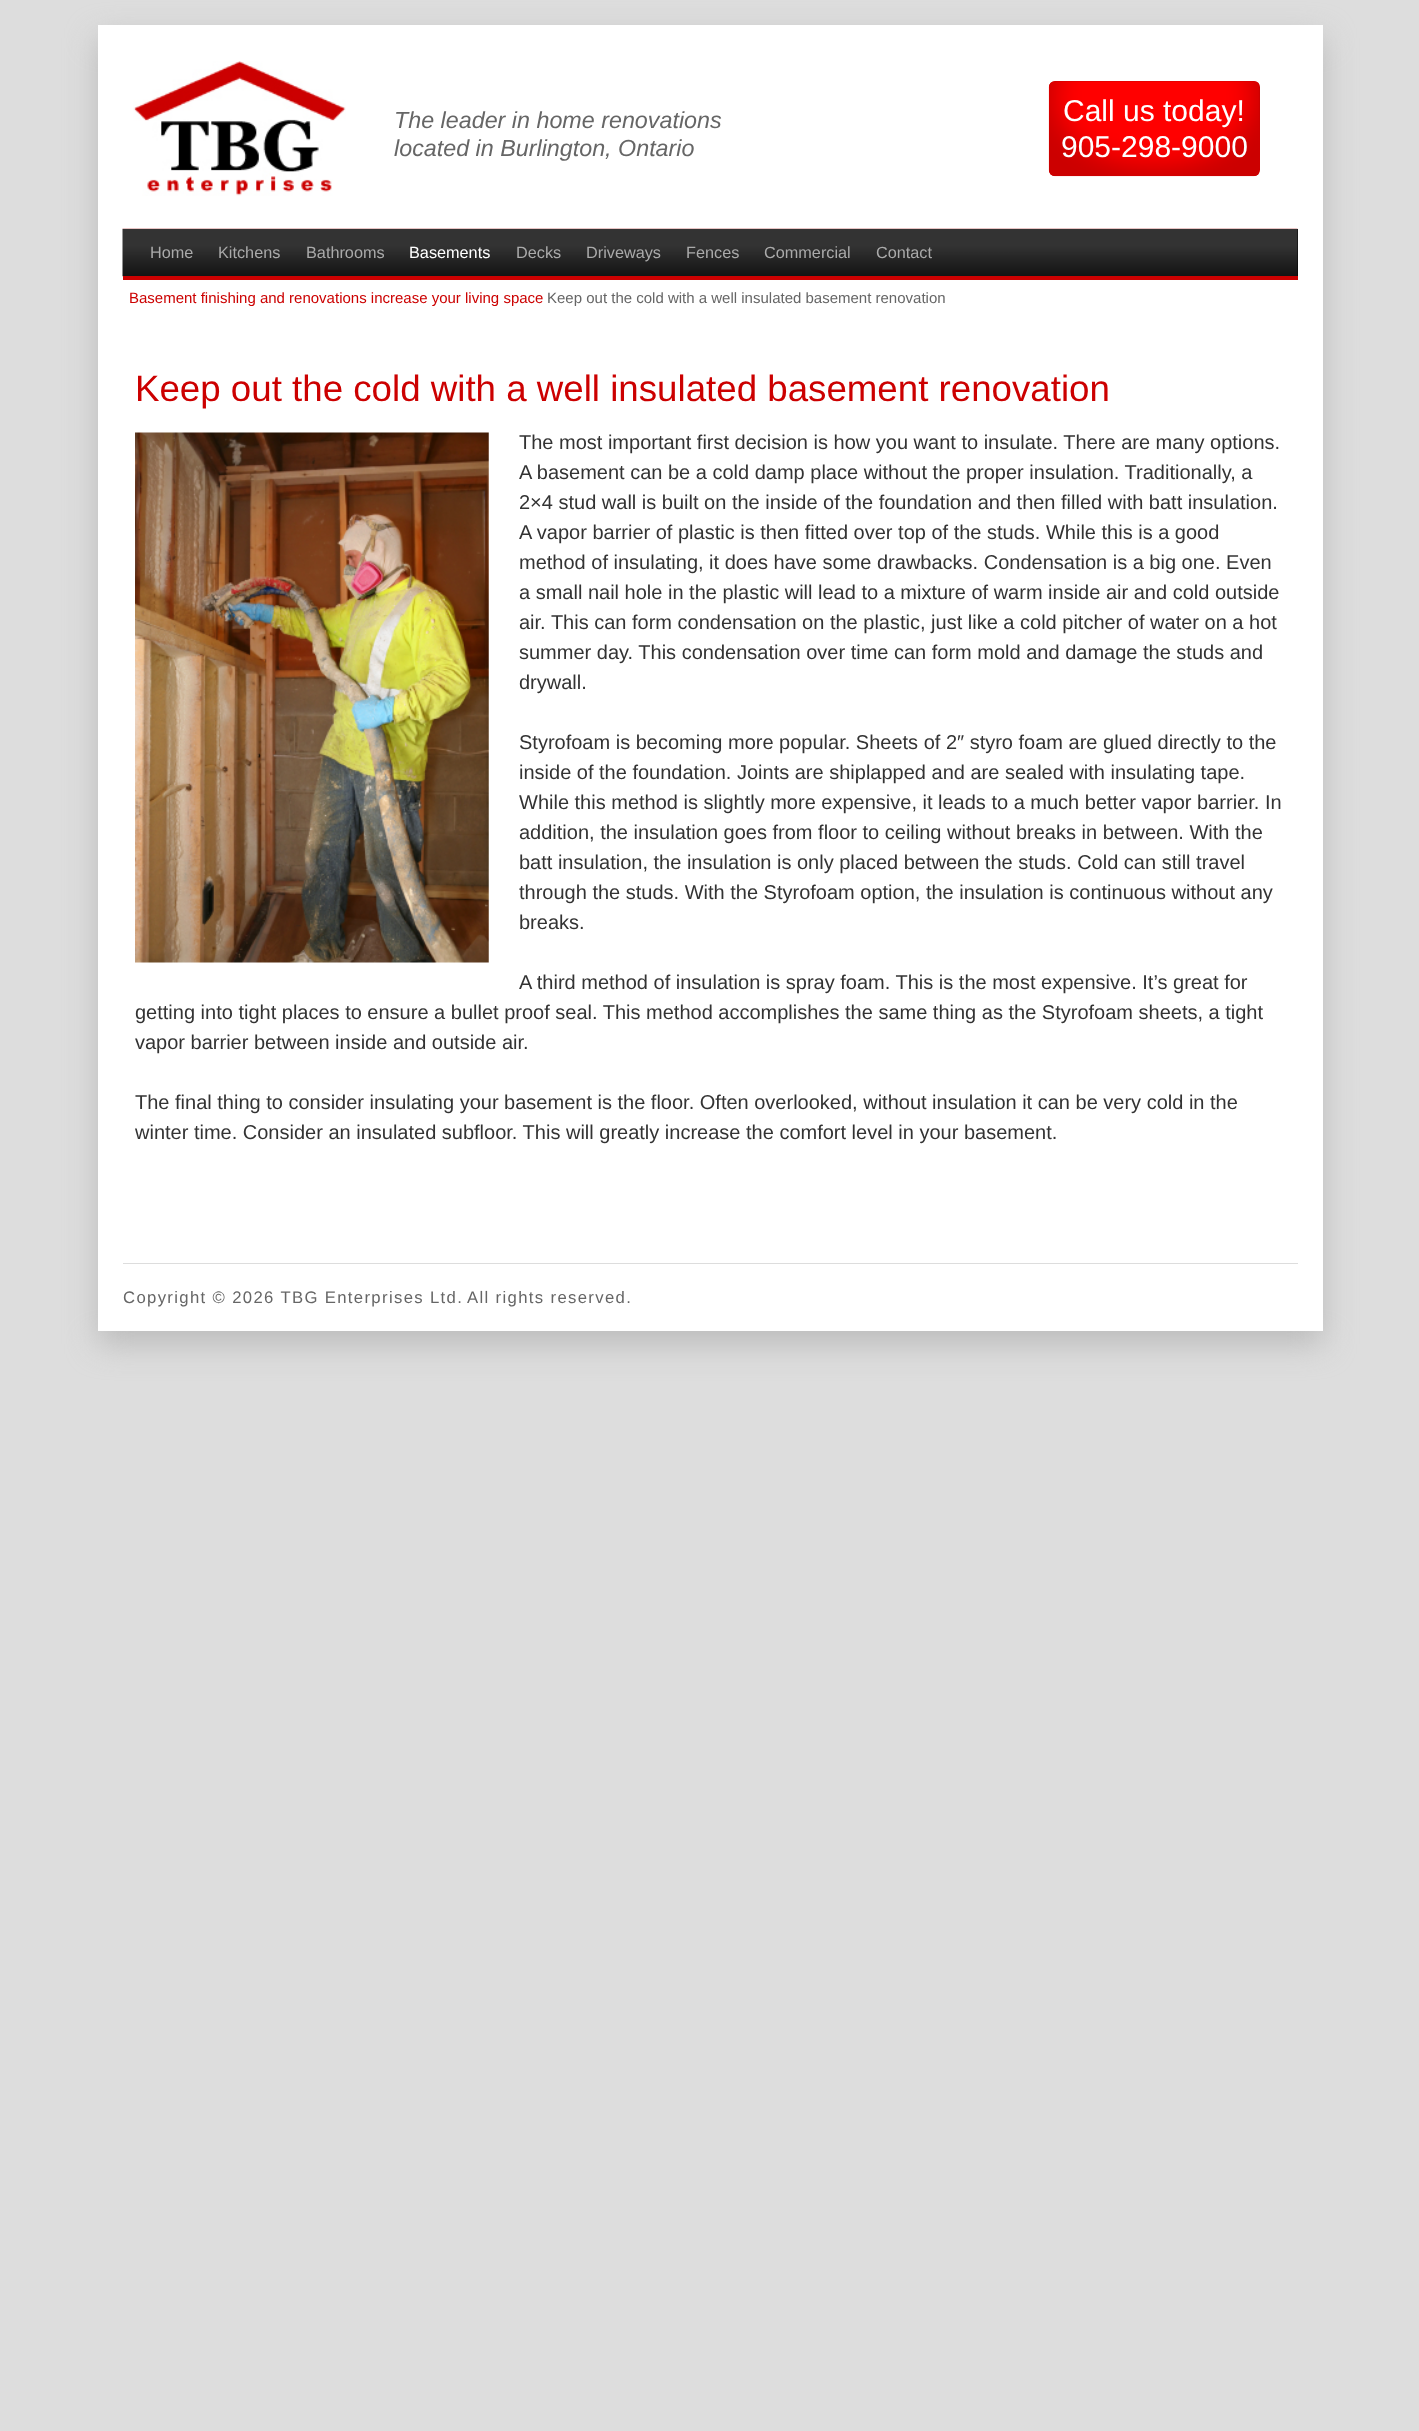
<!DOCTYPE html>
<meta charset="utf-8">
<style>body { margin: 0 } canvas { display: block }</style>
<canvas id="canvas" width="1419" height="2431"></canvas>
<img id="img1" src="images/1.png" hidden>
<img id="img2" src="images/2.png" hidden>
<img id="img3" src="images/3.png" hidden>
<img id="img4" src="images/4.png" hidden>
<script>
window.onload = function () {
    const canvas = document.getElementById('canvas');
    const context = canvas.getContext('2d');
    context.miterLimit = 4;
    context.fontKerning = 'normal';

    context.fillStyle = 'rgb(221, 221, 221)';
    context.fillRect(0, 0, 1419, 2431);
    context.fillStyle = 'rgb(187, 187, 187)';
    context.filter = 'blur(15.5px)';
    context.beginPath();
    context.rect(98, 38, 1225, 1306);
    context.fill();
    context.filter = 'none';
    context.fillStyle = 'rgb(255, 255, 255)';
    context.fillRect(98, 25, 1225, 1306);
    context.drawImage(document.getElementById('img1'), 133, 61, 213, 135);
    context.fillStyle = 'rgb(204, 0, 0)';
    context.beginPath();
    context.roundRect(1049, 81, 211, 95, 6);
    context.fill();
    context.drawImage(document.getElementById('img2'), 1048, 81, 211, 96);
    context.fillStyle = 'rgb(0, 0, 0)';
    context.fillRect(1297, 229, 1, 47);
    context.drawImage(document.getElementById('img3'), 122, 228, 1176, 49);
    context.fillStyle = 'rgb(204, 0, 0)';
    context.fillRect(123, 276, 1175, 4);
    context.drawImage(document.getElementById('img4'), 135, 432, 354, 531);
    context.fillStyle = 'rgb(221, 221, 221)';
    context.fillRect(123, 1263, 1175, 1);
    context.font = 'italic 23.3px Liberation Sans';
    context.fillStyle = 'rgb(102, 102, 102)';
    context.fillText('The leader in home renovations', 394, 128);
    context.fillText('located in Burlington, Ontario', 394, 156);
    context.font = '30px Liberation Sans';
    context.fillStyle = 'rgb(255, 255, 255)';
    context.fillText('Call us today!', 1063, 121);
    context.fillText('905-298-9000', 1061, 157);
    context.font = '16.25px Liberation Sans';
    context.fillStyle = 'rgb(170, 170, 170)';
    context.fillText('Home', 150, 258);
    context.fillText('Kitchens', 218, 258);
    context.fillText('Bathrooms', 306, 258);
    context.fillStyle = 'rgb(255, 255, 255)';
    context.fillText('Basements', 409, 258);
    context.fillStyle = 'rgb(170, 170, 170)';
    context.fillText('Decks', 516, 258);
    context.fillText('Driveways', 586, 258);
    context.fillText('Fences', 686, 258);
    context.fillText('Commercial', 764, 258);
    context.fillText('Contact', 876, 258);
    context.font = '15px Liberation Sans';
    context.fillStyle = 'rgb(204, 0, 0)';
    context.fillText('Basement finishing and renovations increase your living space', 129, 303);
    context.fillStyle = 'rgb(102, 102, 102)';
    context.fillText('Keep out the cold with a well insulated basement renovation', 547, 303);
    context.font = '36.7px Liberation Sans';
    context.fillStyle = 'rgb(204, 0, 0)';
    context.fillText('Keep out the cold with a well insulated basement renovation', 135, 401);
    context.font = '20px Liberation Sans';
    context.fillStyle = 'rgb(51, 51, 51)';
    context.fillText('The most important first decision is how you want to insulate. There are many options.', 519, 449);
    context.fillText('A basement can be a cold damp place without the proper insulation. Traditionally, a', 519, 479);
    context.fillText('2×4 stud wall is built on the inside of the foundation and then filled with batt insulation.', 519, 509);
    context.fillText('A vapor barrier of plastic is then fitted over top of the studs. While this is a good', 519, 539);
    context.fillText('method of insulating, it does have some drawbacks. Condensation is a big one. Even', 519, 569);
    context.fillText('a small nail hole in the plastic will lead to a mixture of warm inside air and cold outside', 519, 599);
    context.fillText('air. This can form condensation on the plastic, just like a cold pitcher of water on a hot', 519, 629);
    context.fillText('summer day. This condensation over time can form mold and damage the studs and', 519, 659);
    context.fillText('drywall.', 519, 689);
    context.fillText('Styrofoam is becoming more popular. Sheets of 2″ styro foam are glued directly to the', 519, 749);
    context.fillText('inside of the foundation. Joints are shiplapped and are sealed with insulating tape.', 519, 779);
    context.fillText('While this method is slightly more expensive, it leads to a much better vapor barrier. In', 519, 809);
    context.fillText('addition, the insulation goes from floor to ceiling without breaks in between. With the', 519, 839);
    context.fillText('batt insulation, the insulation is only placed between the studs. Cold can still travel', 519, 869);
    context.fillText('through the studs. With the Styrofoam option, the insulation is continuous without any', 519, 899);
    context.fillText('breaks.', 519, 929);
    context.fillText('A third method of insulation is spray foam. This is the most expensive. It’s great for', 519, 989);
    context.fillText('getting into tight places to ensure a bullet proof seal. This method accomplishes the same thing as the Styrofoam sheets, a tight', 135, 1019);
    context.fillText('vapor barrier between inside and outside air.', 135, 1049);
    context.fillText('The final thing to consider insulating your basement is the floor. Often overlooked, without insulation it can be very cold in the', 135, 1109);
    context.fillText('winter time. Consider an insulated subfloor. This will greatly increase the comfort level in your basement.', 135, 1139);
    context.letterSpacing = '1.35px';
    context.font = '16.7px Liberation Sans';
    context.fillStyle = 'rgb(102, 102, 102)';
    context.fillText('Copyright © 2026 TBG Enterprises Ltd.', 123, 1303);
    context.fillText('All rights reserved.', 467, 1303);
};
</script>
